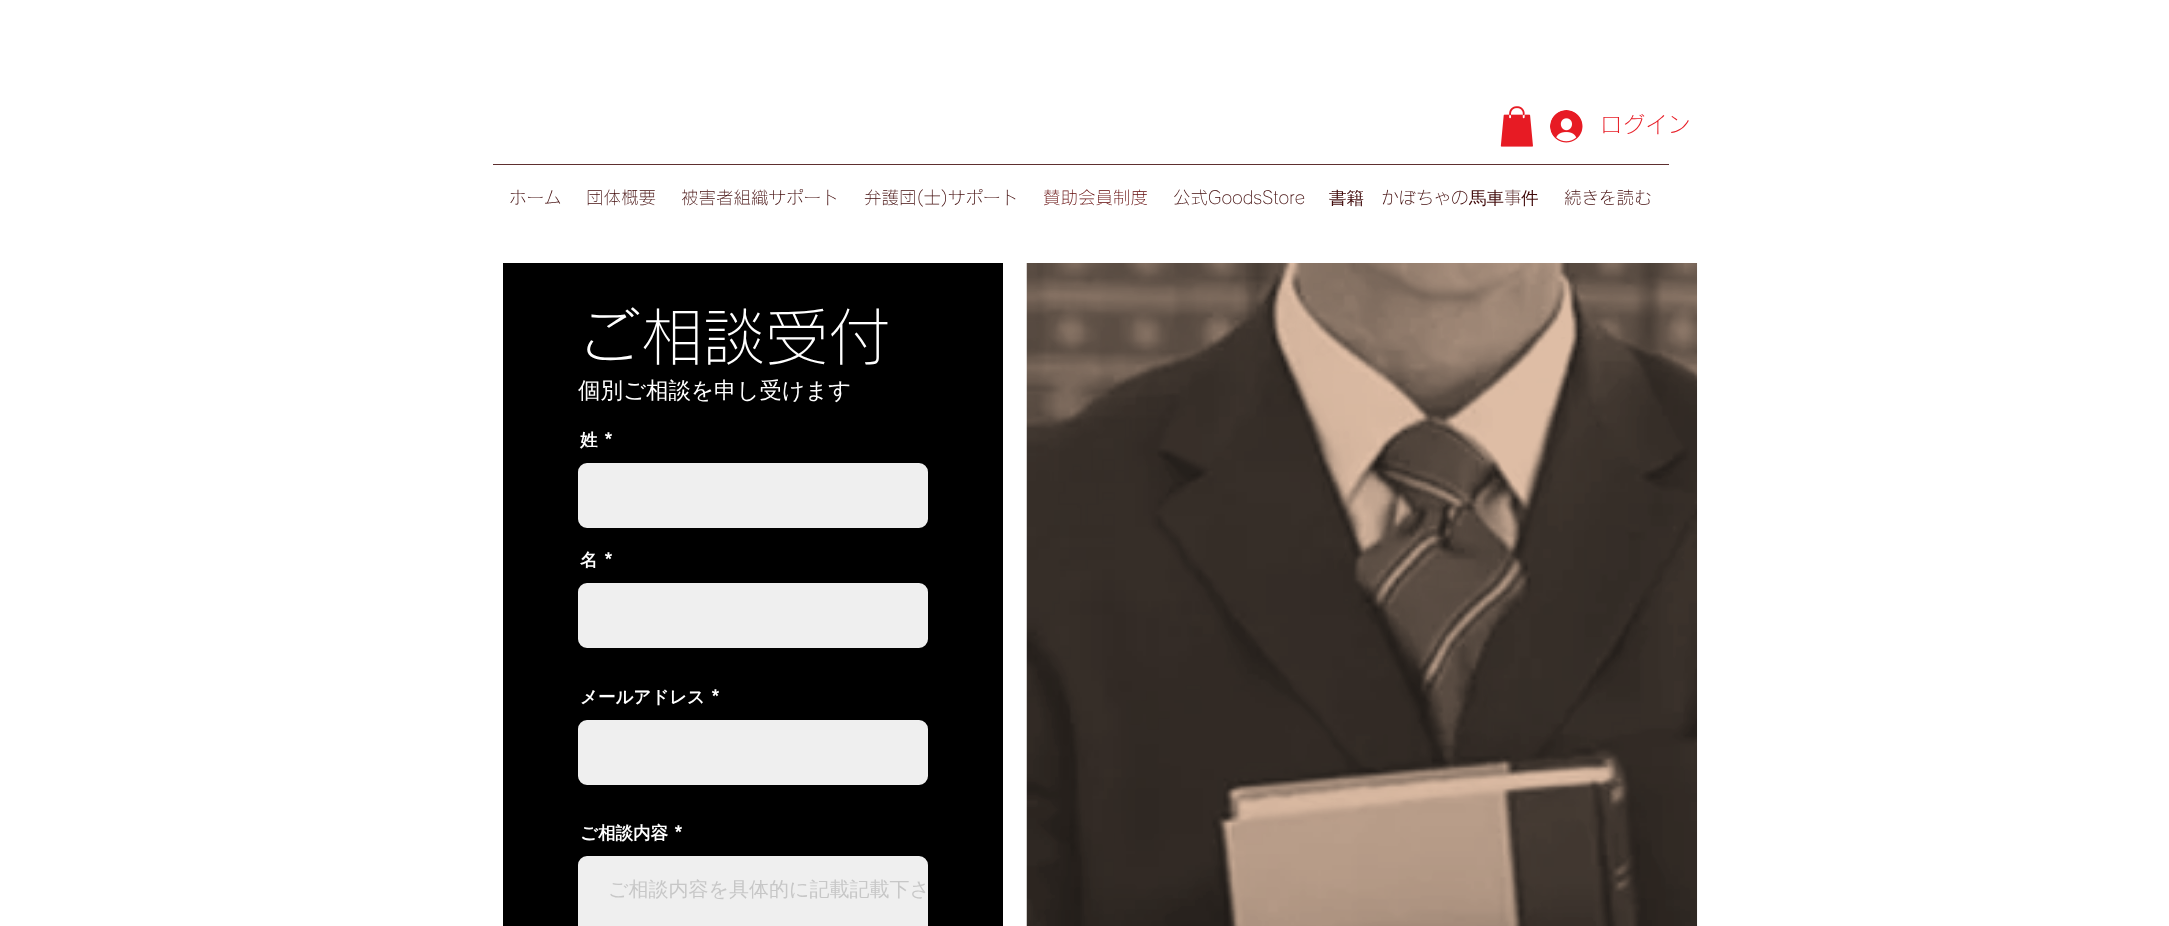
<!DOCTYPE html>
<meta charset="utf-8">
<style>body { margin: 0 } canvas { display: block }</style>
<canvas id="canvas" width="2169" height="926"></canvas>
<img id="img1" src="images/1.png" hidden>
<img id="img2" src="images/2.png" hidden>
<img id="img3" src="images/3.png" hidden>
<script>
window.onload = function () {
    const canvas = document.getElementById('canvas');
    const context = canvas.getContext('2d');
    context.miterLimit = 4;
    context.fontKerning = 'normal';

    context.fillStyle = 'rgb(255, 255, 255)';
    context.fillRect(0, 0, 2169, 926);
    context.drawImage(document.getElementById('img1'), 1500, 106, 33, 41);
    context.drawImage(document.getElementById('img2'), 1550, 110, 33, 33);
    context.fillStyle = 'rgb(94, 47, 47)';
    context.fillRect(493, 164, 1176, 1);
    context.fillStyle = 'rgb(0, 0, 0)';
    context.fillRect(503, 263, 500, 663);
    context.fillStyle = 'rgb(239, 239, 239)';
    context.beginPath();
    context.roundRect(579.5, 464.5, 347, 62, 7.5);
    context.fill();
    context.strokeStyle = 'rgb(239, 239, 239)';
    context.lineWidth = 3;
    context.stroke();
    context.beginPath();
    context.roundRect(579.5, 584.5, 347, 62, 7.5);
    context.fill();
    context.stroke();
    context.beginPath();
    context.roundRect(579.5, 721.5, 347, 62, 7.5);
    context.fill();
    context.stroke();
    context.beginPath();
    context.roundRect(579.5, 857.5, 347, 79, 7.5);
    context.fill();
    context.stroke();
    context.drawImage(document.getElementById('img3'), 1026, 263, 672, 663);
    context.font = '300 22.5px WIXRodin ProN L';
    context.fillStyle = 'rgb(231, 27, 36)';
    context.fillText('ログイン', 1600, 133);
    context.font = '300 17.5px WIXRodin ProN L';
    context.fillStyle = 'rgb(65, 10, 10)';
    context.fillText('ホーム', 509, 204);
    context.fillText('団体概要', 586, 204);
    context.fillText('被害者組織サポート', 681, 204);
    context.fillText('弁護団(士)サポート', 864, 204);
    context.fillStyle = 'rgb(95, 4, 4)';
    context.fillText('賛助会員制度', 1043, 204);
    context.fillStyle = 'rgb(65, 10, 10)';
    context.fillText('公式GoodsStore', 1173, 204);
    context.font = '500 17.5px WenQuanYi Zen Hei';
    context.fillText('書籍', 1329, 204);
    context.font = '300 17.5px WIXRodin ProN L';
    context.fillText('かぼちゃの', 1381, 204);
    context.font = '500 17.5px WenQuanYi Zen Hei';
    context.fillText('馬車', 1469, 204);
    context.font = '300 17.5px WIXRodin ProN L';
    context.fillText('事', 1504, 204);
    context.font = '500 17.5px WenQuanYi Zen Hei';
    context.fillText('件', 1521, 204);
    context.font = '300 17.5px WIXRodin ProN L';
    context.fillText('続きを読む', 1564, 204);
    context.font = '300 62.5px WIXRodin ProN L';
    context.fillStyle = 'rgb(255, 255, 255)';
    context.fillText('ご相談受付', 578, 360);
    context.font = '500 22.5px WenQuanYi Zen Hei';
    context.fillText('個別ご相談を申し受けます', 578, 398);
    context.font = 'bold 17.5px WenQuanYi Zen Hei';
    context.fillText('姓', 580, 446);
    context.font = 'bold 17.5px futura';
    context.fillText('*', 603, 446);
    context.font = 'bold 17.5px WenQuanYi Zen Hei';
    context.fillText('名', 580, 566);
    context.font = 'bold 17.5px futura';
    context.fillText('*', 603, 566);
    context.font = 'bold 17.5px WenQuanYi Zen Hei';
    context.fillText('メールアドレス', 580, 703);
    context.font = 'bold 17.5px futura';
    context.fillText('*', 710, 703);
    context.font = 'bold 17.5px WenQuanYi Zen Hei';
    context.fillText('ご相談内容', 580, 839);
    context.font = 'bold 17.5px futura';
    context.fillText('*', 673, 839);
    context.font = '500 20px WenQuanYi Zen Hei';
    context.fillStyle = 'rgb(199, 199, 199)';
    context.fillText('ご相談内容を具体的に記載記載下さ', 608, 896);
};
</script>
